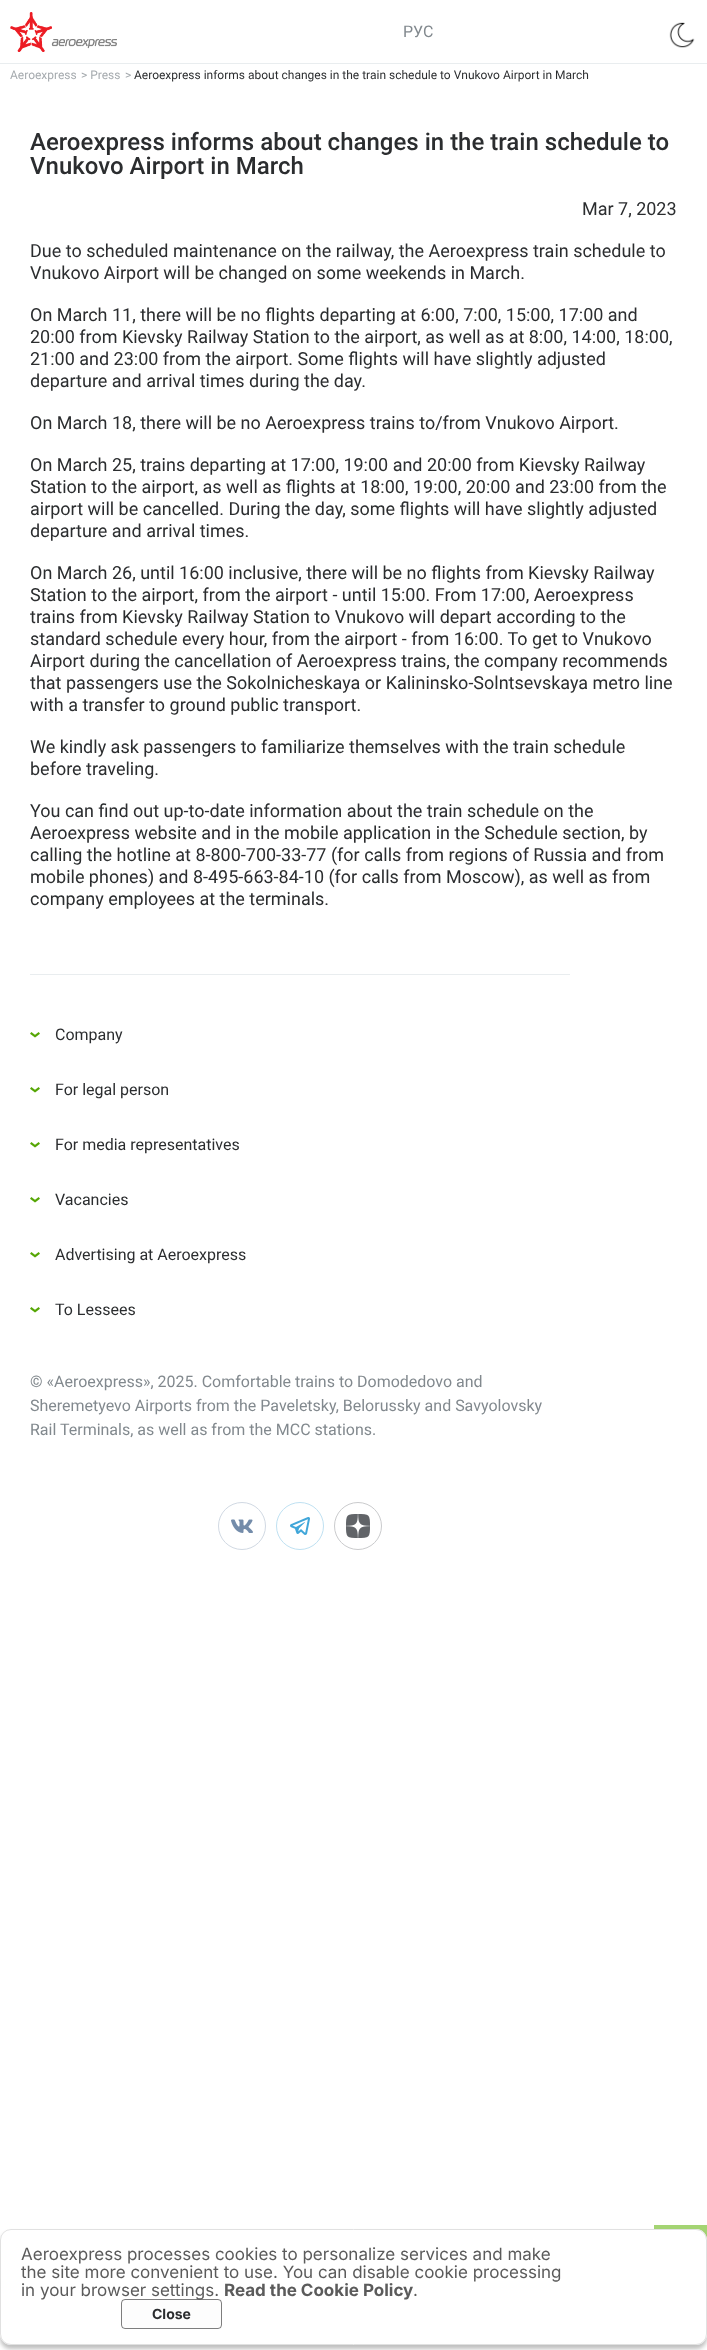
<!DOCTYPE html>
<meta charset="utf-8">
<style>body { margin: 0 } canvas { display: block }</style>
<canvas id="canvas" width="707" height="2350"></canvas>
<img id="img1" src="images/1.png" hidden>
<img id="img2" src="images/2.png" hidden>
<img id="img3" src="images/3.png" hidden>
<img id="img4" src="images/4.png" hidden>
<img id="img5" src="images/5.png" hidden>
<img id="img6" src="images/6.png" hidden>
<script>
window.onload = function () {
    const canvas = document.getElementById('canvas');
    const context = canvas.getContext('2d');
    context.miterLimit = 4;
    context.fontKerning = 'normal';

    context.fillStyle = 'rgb(255, 255, 255)';
    context.fillRect(0, 0, 707, 2350);
    context.fillStyle = 'rgb(233, 237, 239)';
    context.fillRect(0, 63, 707, 1);
    context.drawImage(document.getElementById('img1'), 10, 12, 107, 40);
    context.drawImage(document.getElementById('img2'), 669, 22, 26, 26);
    context.fillRect(30, 974, 540, 1);
    context.drawImage(document.getElementById('img3'), 30, 1032, 10, 6);
    context.drawImage(document.getElementById('img3'), 30, 1087, 10, 6);
    context.drawImage(document.getElementById('img3'), 30, 1142, 10, 6);
    context.drawImage(document.getElementById('img3'), 30, 1197, 10, 6);
    context.drawImage(document.getElementById('img3'), 30, 1252, 10, 6);
    context.drawImage(document.getElementById('img3'), 30, 1307, 10, 6);
    context.beginPath();
    context.arc(242, 1526, 23.5, 0, 2 * Math.PI);
    context.strokeStyle = 'rgb(209, 217, 227)';
    context.stroke();
    context.drawImage(document.getElementById('img4'), 231, 1519, 22, 14);
    context.beginPath();
    context.arc(300, 1526, 23.5, 0, 2 * Math.PI);
    context.strokeStyle = 'rgb(191, 225, 242)';
    context.stroke();
    context.drawImage(document.getElementById('img5'), 290, 1517, 20, 18);
    context.beginPath();
    context.arc(358, 1526, 23.5, 0, 2 * Math.PI);
    context.strokeStyle = 'rgb(202, 203, 205)';
    context.stroke();
    context.drawImage(document.getElementById('img6'), 346, 1514, 24, 24);
    context.fillStyle = 'rgb(164, 212, 115)';
    context.fillRect(654, 2225, 53, 15);
    context.fillStyle = 'rgba(0, 0, 0, 0.25)';
    context.filter = 'blur(2px)';
    context.beginPath();
    context.roundRect(0, 2233, 707, 116, 11);
    context.fill();
    context.filter = 'none';
    context.fillStyle = 'rgb(255, 255, 255)';
    context.beginPath();
    context.roundRect(0, 2229, 707, 116, 11);
    context.fill();
    context.beginPath();
    context.roundRect(0.5, 2229.5, 706, 115, 10.5);
    context.strokeStyle = 'rgba(222, 222, 222, 0.9)';
    context.stroke();
    context.font = '16px Roboto';
    context.fillStyle = 'rgb(130, 137, 142)';
    context.fillText('РУС', 403, 37);
    context.font = '12px Roboto';
    context.fillStyle = 'rgb(165, 170, 174)';
    context.fillText('Aeroexpress', 10, 79);
    context.fillText('> Press', 81, 79);
    context.fillText('>', 125, 79);
    context.fillStyle = 'rgb(43, 45, 47)';
    context.fillText('Aeroexpress informs about changes in the train schedule to Vnukovo Airport in March', 134, 79);
    context.font = '500 24px Roboto';
    context.fillText('Aeroexpress informs about changes in the train schedule to', 30, 150);
    context.fillText('Vnukovo Airport in March', 30, 174);
    context.font = '18px Roboto';
    context.fillText('Mar 7, 2023', 582, 215);
    context.fillText('Due to scheduled maintenance on the railway, the Aeroexpress train schedule to', 30, 257);
    context.fillText('Vnukovo Airport will be changed on some weekends in March.', 30, 279);
    context.fillText('On March 11, there will be no flights departing at 6:00, 7:00, 15:00, 17:00 and', 30, 321);
    context.fillText('20:00 from Kievsky Railway Station to the airport, as well as at 8:00, 14:00, 18:00,', 30, 343);
    context.fillText('21:00 and 23:00 from the airport. Some flights will have slightly adjusted', 30, 365);
    context.fillText('departure and arrival times during the day.', 30, 387);
    context.fillText('On March 18, there will be no Aeroexpress trains to/from Vnukovo Airport.', 30, 429);
    context.fillText('On March 25, trains departing at 17:00, 19:00 and 20:00 from Kievsky Railway', 30, 471);
    context.fillText('Station to the airport, as well as flights at 18:00, 19:00, 20:00 and 23:00 from the', 30, 493);
    context.fillText('airport will be cancelled. During the day, some flights will have slightly adjusted', 30, 515);
    context.fillText('departure and arrival times.', 30, 537);
    context.fillText('On March 26, until 16:00 inclusive, there will be no flights from Kievsky Railway', 30, 579);
    context.fillText('Station to the airport, from the airport - until 15:00. From 17:00, Aeroexpress', 30, 601);
    context.fillText('trains from Kievsky Railway Station to Vnukovo will depart according to the', 30, 623);
    context.fillText('standard schedule every hour, from the airport - from 16:00. To get to Vnukovo', 30, 645);
    context.fillText('Airport during the cancellation of Aeroexpress trains, the company recommends', 30, 667);
    context.fillText('that passengers use the Sokolnicheskaya or Kalininsko-Solntsevskaya metro line', 30, 689);
    context.fillText('with a transfer to ground public transport.', 30, 711);
    context.fillText('We kindly ask passengers to familiarize themselves with the train schedule', 30, 753);
    context.fillText('before traveling.', 30, 775);
    context.fillText('You can find out up-to-date information about the train schedule on the', 30, 817);
    context.fillText('Aeroexpress website and in the mobile application in the Schedule section, by', 30, 839);
    context.fillText('calling the hotline at 8-800-700-33-77 (for calls from regions of Russia and from', 30, 861);
    context.fillText('mobile phones) and 8-495-663-84-10 (for calls from Moscow), as well as from', 30, 883);
    context.fillText('company employees at the terminals.', 30, 905);
    context.font = '16px Roboto';
    context.fillText('Company', 55, 1040);
    context.fillText('For legal person', 55, 1095);
    context.fillText('For media representatives', 55, 1150);
    context.fillText('Vacancies', 55, 1205);
    context.fillText('Advertising at Aeroexpress', 55, 1260);
    context.fillText('To Lessees', 55, 1315);
    context.fillStyle = 'rgb(130, 137, 142)';
    context.fillText('© «Aeroexpress», 2025. Comfortable trains to Domodedovo and', 30, 1387);
    context.fillText('Sheremetyevo Airports from the Paveletsky, Belorussky and Savyolovsky', 30, 1411);
    context.fillText('Rail Terminals, as well as from the MCC stations.', 30, 1435);
    context.font = '17px Inter';
    context.fillStyle = 'rgb(91, 91, 91)';
    context.fillText('Aeroexpress processes cookies to personalize services and make', 21, 2260);
    context.fillText('the site more convenient to use. You can disable cookie processing', 21, 2278);
    context.fillText('in your browser settings.', 21, 2296);
    context.font = 'bold 17px Inter';
    context.fillText('Read the Cookie Policy', 224, 2296);
    context.font = '17px Inter';
    context.fillText('.', 413, 2296);
    context.fillStyle = 'rgba(252, 252, 252, 0.6)';
    context.beginPath();
    context.roundRect(121, 2299, 101, 30, 4);
    context.fill();
    context.beginPath();
    context.roundRect(121.5, 2299.5, 100, 29, 3.5);
    context.strokeStyle = 'rgba(0, 0, 0, 0.5)';
    context.stroke();
    context.font = 'bold 14px Inter';
    context.fillStyle = 'rgb(43, 45, 47)';
    context.fillText('Close', 152, 2319);
};
</script>
